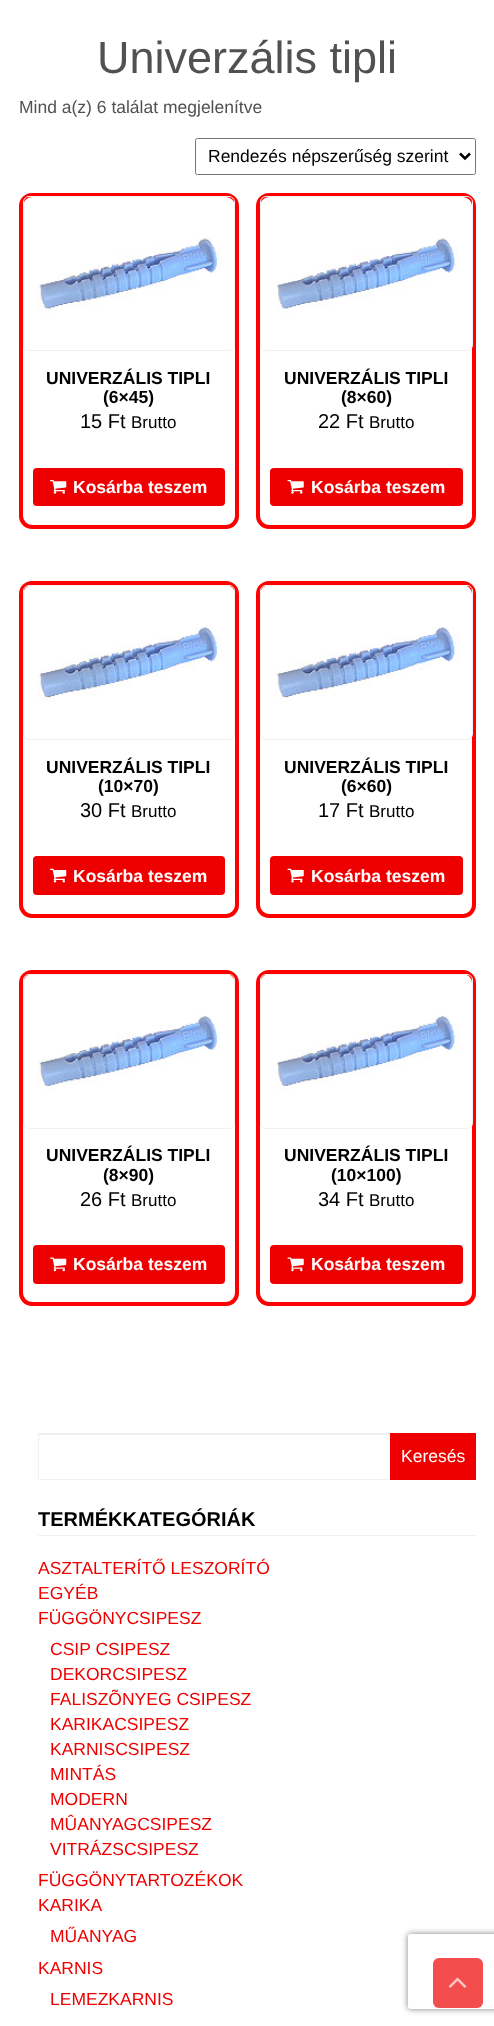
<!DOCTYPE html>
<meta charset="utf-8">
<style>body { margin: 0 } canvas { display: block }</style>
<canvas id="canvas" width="494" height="2026"></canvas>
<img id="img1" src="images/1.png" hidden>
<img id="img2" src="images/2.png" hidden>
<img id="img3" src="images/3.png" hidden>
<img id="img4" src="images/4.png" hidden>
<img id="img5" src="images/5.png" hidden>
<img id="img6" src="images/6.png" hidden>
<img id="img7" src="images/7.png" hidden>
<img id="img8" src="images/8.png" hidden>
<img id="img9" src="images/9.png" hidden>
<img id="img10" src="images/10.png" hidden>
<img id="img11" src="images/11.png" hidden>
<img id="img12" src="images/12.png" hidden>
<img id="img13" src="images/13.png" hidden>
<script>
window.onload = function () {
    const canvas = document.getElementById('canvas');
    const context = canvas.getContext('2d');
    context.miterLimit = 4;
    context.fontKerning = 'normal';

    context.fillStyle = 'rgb(255, 255, 255)';
    context.fillRect(0, 0, 494, 2026);
    context.beginPath();
    context.roundRect(195.5, 138.5, 280, 36, 2);
    context.strokeStyle = 'rgb(118, 118, 118)';
    context.stroke();
    context.beginPath();
    context.moveTo(460, 153.5);
    context.lineTo(465, 158.5);
    context.lineTo(470, 153.5);
    context.strokeStyle = 'rgb(0, 0, 0)';
    context.lineWidth = 2.5;
    context.stroke();
    context.beginPath();
    context.roundRect(21, 195, 216, 332, 11);
    context.strokeStyle = 'rgb(255, 0, 0)';
    context.lineWidth = 4;
    context.stroke();
    context.beginPath();
    context.roundRect(23.5, 196.5, 211, 154, 5.5);
    context.strokeStyle = 'rgb(241, 241, 241)';
    context.lineWidth = 1;
    context.stroke();
    context.drawImage(document.getElementById('img1'), 37, 238, 184, 76);
    context.fillStyle = 'rgb(239, 0, 0)';
    context.beginPath();
    context.roundRect(33, 468, 192, 38, 4);
    context.fill();
    context.drawImage(document.getElementById('img2'), 50, 480, 17, 14);
    context.beginPath();
    context.roundRect(258, 195, 216, 332, 11);
    context.strokeStyle = 'rgb(255, 0, 0)';
    context.lineWidth = 4;
    context.stroke();
    context.beginPath();
    context.roundRect(260.5, 196.5, 212, 154, 5.5);
    context.strokeStyle = 'rgb(241, 241, 241)';
    context.lineWidth = 1;
    context.stroke();
    context.drawImage(document.getElementById('img3'), 275, 238, 184, 76);
    context.beginPath();
    context.roundRect(270, 468, 193, 38, 4);
    context.fill();
    context.drawImage(document.getElementById('img4'), 287, 480, 17, 14);
    context.beginPath();
    context.roundRect(21, 583, 216, 333, 11);
    context.strokeStyle = 'rgb(255, 0, 0)';
    context.lineWidth = 4;
    context.stroke();
    context.beginPath();
    context.roundRect(23.5, 585.5, 211, 154, 5.5);
    context.strokeStyle = 'rgb(241, 241, 241)';
    context.lineWidth = 1;
    context.stroke();
    context.drawImage(document.getElementById('img5'), 38, 626, 183, 76);
    context.beginPath();
    context.roundRect(33, 856, 192, 39, 4);
    context.fill();
    context.drawImage(document.getElementById('img6'), 50, 868, 17, 15);
    context.beginPath();
    context.roundRect(258, 583, 216, 333, 11);
    context.strokeStyle = 'rgb(255, 0, 0)';
    context.lineWidth = 4;
    context.stroke();
    context.beginPath();
    context.roundRect(260.5, 585.5, 212, 154, 5.5);
    context.strokeStyle = 'rgb(241, 241, 241)';
    context.lineWidth = 1;
    context.stroke();
    context.drawImage(document.getElementById('img7'), 275, 626, 184, 76);
    context.beginPath();
    context.roundRect(270, 856, 193, 39, 4);
    context.fill();
    context.drawImage(document.getElementById('img8'), 287, 868, 17, 15);
    context.beginPath();
    context.roundRect(21, 972, 216, 332, 11);
    context.strokeStyle = 'rgb(255, 0, 0)';
    context.lineWidth = 4;
    context.stroke();
    context.beginPath();
    context.roundRect(23.5, 974.5, 211, 154, 5.5);
    context.strokeStyle = 'rgb(241, 241, 241)';
    context.lineWidth = 1;
    context.stroke();
    context.drawImage(document.getElementById('img9'), 38, 1015, 183, 76);
    context.beginPath();
    context.roundRect(33, 1245, 192, 39, 4);
    context.fill();
    context.drawImage(document.getElementById('img10'), 50, 1257, 17, 15);
    context.beginPath();
    context.roundRect(258, 972, 216, 332, 11);
    context.strokeStyle = 'rgb(255, 0, 0)';
    context.lineWidth = 4;
    context.stroke();
    context.beginPath();
    context.roundRect(260.5, 974.5, 212, 154, 5.5);
    context.strokeStyle = 'rgb(241, 241, 241)';
    context.lineWidth = 1;
    context.stroke();
    context.drawImage(document.getElementById('img11'), 275, 1015, 184, 76);
    context.beginPath();
    context.roundRect(270, 1245, 193, 39, 4);
    context.fill();
    context.drawImage(document.getElementById('img12'), 287, 1257, 17, 15);
    context.fillStyle = 'rgb(236, 236, 236)';
    context.fillRect(39, 1434, 351, 1);
    context.strokeRect(38.5, 1433.5, 437, 46);
    context.fillStyle = 'rgb(239, 0, 0)';
    context.fillRect(390, 1433, 86, 47);
    context.fillStyle = 'rgb(241, 241, 241)';
    context.fillRect(38, 1535, 438, 1);
    context.save();
    context.beginPath();
    context.moveTo(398, 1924);
    context.lineTo(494, 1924);
    context.lineTo(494, 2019);
    context.lineTo(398, 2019);
    context.closePath();
    context.moveTo(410.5, 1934);
    context.lineTo(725.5, 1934);
    context.bezierCurveTo(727, 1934, 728, 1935, 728, 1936.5);
    context.lineTo(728, 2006.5);
    context.bezierCurveTo(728, 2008, 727, 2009, 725.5, 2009);
    context.lineTo(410.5, 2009);
    context.bezierCurveTo(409, 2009, 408, 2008, 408, 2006.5);
    context.lineTo(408, 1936.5);
    context.bezierCurveTo(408, 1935, 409, 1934, 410.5, 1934);
    context.closePath();
    context.clip('evenodd');
    context.fillStyle = 'rgb(128, 128, 128)';
    context.filter = 'blur(3px)';
    context.beginPath();
    context.roundRect(408, 1934, 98, 75, 2.5);
    context.fill();
    context.filter = 'none';
    context.restore();
    context.fillStyle = 'rgb(244, 77, 77)';
    context.beginPath();
    context.roundRect(433, 1958, 50, 50, 6);
    context.fill();
    context.drawImage(document.getElementById('img13'), 448, 1977, 19, 11);
    context.font = '45px Liberation Sans';
    context.fillStyle = 'rgb(81, 81, 81)';
    context.fillText('Univerzális tipli', 97, 73);
    context.font = '17.5px Liberation Sans';
    context.fillText('Mind a(z) 6 találat megjelenítve', 19, 113);
    context.fillStyle = 'rgb(0, 0, 0)';
    context.fillText('Rendezés népszerűség szerint', 208, 162);
    context.font = 'bold 17.5px Liberation Sans';
    context.fillText('UNIVERZÁLIS TIPLI', 46, 384);
    context.fillText('(6×45)', 103, 403);
    context.font = '20px Liberation Sans';
    context.fillText('15 Ft', 80, 428);
    context.font = '17px Liberation Sans';
    context.fillText('Brutto', 131, 428);
    context.font = 'bold 17.5px Liberation Sans';
    context.fillStyle = 'rgb(255, 255, 255)';
    context.fillText('Kosárba teszem', 73, 493);
    context.fillStyle = 'rgb(0, 0, 0)';
    context.fillText('UNIVERZÁLIS TIPLI', 284, 384);
    context.fillText('(8×60)', 341, 403);
    context.font = '20px Liberation Sans';
    context.fillText('22 Ft', 318, 428);
    context.font = '17px Liberation Sans';
    context.fillText('Brutto', 369, 428);
    context.font = 'bold 17.5px Liberation Sans';
    context.fillStyle = 'rgb(255, 255, 255)';
    context.fillText('Kosárba teszem', 311, 493);
    context.fillStyle = 'rgb(0, 0, 0)';
    context.fillText('UNIVERZÁLIS TIPLI', 46, 773);
    context.fillText('(10×70)', 98, 792);
    context.font = '20px Liberation Sans';
    context.fillText('30 Ft', 80, 817);
    context.font = '17px Liberation Sans';
    context.fillText('Brutto', 131, 817);
    context.font = 'bold 17.5px Liberation Sans';
    context.fillStyle = 'rgb(255, 255, 255)';
    context.fillText('Kosárba teszem', 73, 882);
    context.fillStyle = 'rgb(0, 0, 0)';
    context.fillText('UNIVERZÁLIS TIPLI', 284, 773);
    context.fillText('(6×60)', 341, 792);
    context.font = '20px Liberation Sans';
    context.fillText('17 Ft', 318, 817);
    context.font = '17px Liberation Sans';
    context.fillText('Brutto', 369, 817);
    context.font = 'bold 17.5px Liberation Sans';
    context.fillStyle = 'rgb(255, 255, 255)';
    context.fillText('Kosárba teszem', 311, 882);
    context.fillStyle = 'rgb(0, 0, 0)';
    context.fillText('UNIVERZÁLIS TIPLI', 46, 1161);
    context.fillText('(8×90)', 103, 1181);
    context.font = '20px Liberation Sans';
    context.fillText('26 Ft', 80, 1206);
    context.font = '17px Liberation Sans';
    context.fillText('Brutto', 131, 1206);
    context.font = 'bold 17.5px Liberation Sans';
    context.fillStyle = 'rgb(255, 255, 255)';
    context.fillText('Kosárba teszem', 73, 1270);
    context.fillStyle = 'rgb(0, 0, 0)';
    context.fillText('UNIVERZÁLIS TIPLI', 284, 1161);
    context.fillText('(10×100)', 331, 1181);
    context.font = '20px Liberation Sans';
    context.fillText('34 Ft', 318, 1206);
    context.font = '17px Liberation Sans';
    context.fillText('Brutto', 369, 1206);
    context.font = 'bold 17.5px Liberation Sans';
    context.fillStyle = 'rgb(255, 255, 255)';
    context.fillText('Kosárba teszem', 311, 1270);
    context.font = '17.5px Liberation Sans';
    context.fillText('Keresés', 401, 1462);
    context.font = 'bold 20px Liberation Sans';
    context.fillStyle = 'rgb(0, 0, 0)';
    context.fillText('TERMÉKKATEGÓRIÁK', 38, 1526);
    context.font = '17.5px Liberation Sans';
    context.fillStyle = 'rgb(239, 0, 0)';
    context.fillText('ASZTALTERÍTŐ LESZORÍTÓ', 38, 1574);
    context.fillText('EGYÉB', 38, 1599);
    context.fillText('FÜGGÖNYCSIPESZ', 38, 1624);
    context.fillText('CSIP CSIPESZ', 50, 1655);
    context.fillText('DEKORCSIPESZ', 50, 1680);
    context.fillText('FALISZÕNYEG CSIPESZ', 50, 1705);
    context.fillText('KARIKACSIPESZ', 50, 1730);
    context.fillText('KARNISCSIPESZ', 50, 1755);
    context.fillText('MINTÁS', 50, 1780);
    context.fillText('MODERN', 50, 1805);
    context.fillText('MÛANYAGCSIPESZ', 50, 1830);
    context.fillText('VITRÁZSCSIPESZ', 50, 1855);
    context.fillText('FÜGGÖNYTARTOZÉKOK', 38, 1886);
    context.fillText('KARIKA', 38, 1911);
    context.fillText('MŰANYAG', 50, 1942);
    context.fillText('KARNIS', 38, 1974);
    context.fillText('LEMEZKARNIS', 50, 2005);
};
</script>
